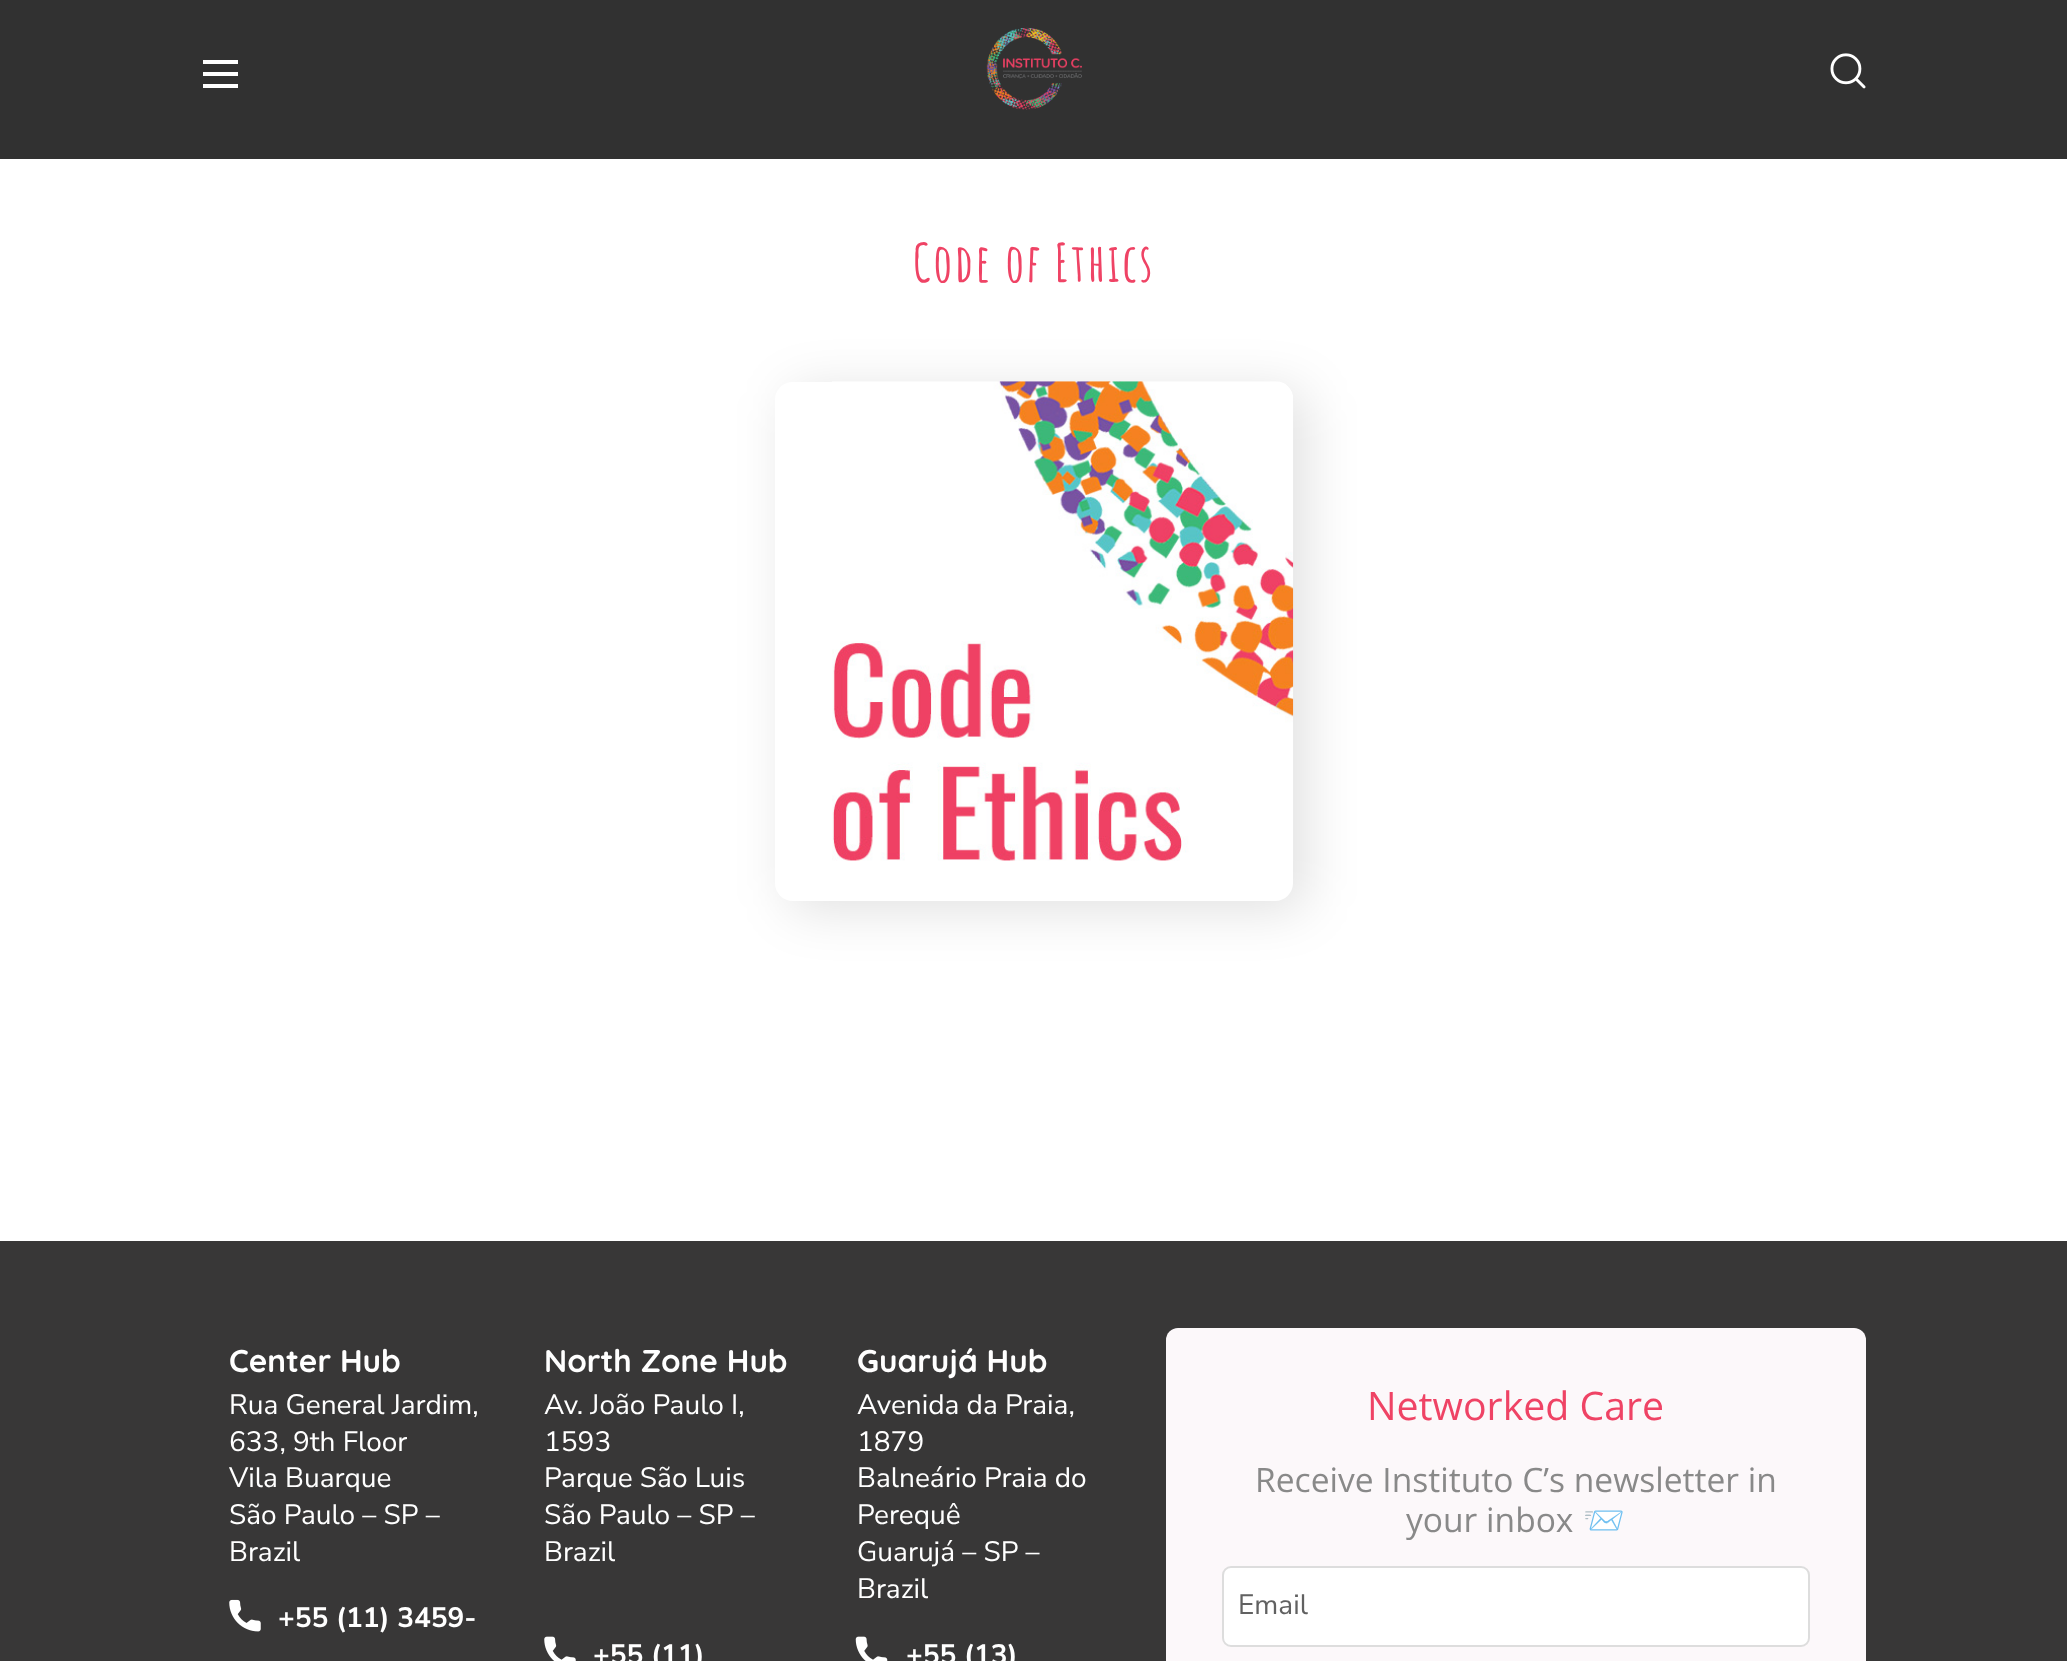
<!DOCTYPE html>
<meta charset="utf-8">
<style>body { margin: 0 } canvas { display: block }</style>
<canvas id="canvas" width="2067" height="1661"></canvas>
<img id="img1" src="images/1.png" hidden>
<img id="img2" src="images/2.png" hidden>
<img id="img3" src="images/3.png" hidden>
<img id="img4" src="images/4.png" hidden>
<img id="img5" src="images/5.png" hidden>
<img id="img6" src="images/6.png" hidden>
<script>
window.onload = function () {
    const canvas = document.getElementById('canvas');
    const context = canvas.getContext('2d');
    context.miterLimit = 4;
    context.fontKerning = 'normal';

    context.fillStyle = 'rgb(255, 255, 255)';
    context.fillRect(0, 0, 2067, 1661);
    context.fillStyle = 'rgb(49, 49, 49)';
    context.fillRect(0, 0, 2067, 159);
    context.fillStyle = 'rgb(255, 255, 255)';
    context.fillRect(203, 60, 35, 4);
    context.fillRect(203, 72, 35, 4);
    context.fillRect(203, 84, 35, 4);
    context.drawImage(document.getElementById('img1'), 986, 27, 96, 83);
    context.drawImage(document.getElementById('img2'), 1830, 53, 36, 36);
    context.save();
    context.beginPath();
    context.moveTo(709, 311);
    context.lineTo(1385, 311);
    context.lineTo(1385, 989);
    context.lineTo(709, 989);
    context.closePath();
    context.moveTo(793, 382);
    context.lineTo(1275, 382);
    context.bezierCurveTo(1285, 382, 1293, 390, 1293, 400);
    context.lineTo(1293, 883);
    context.bezierCurveTo(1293, 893, 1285, 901, 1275, 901);
    context.lineTo(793, 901);
    context.bezierCurveTo(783, 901, 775, 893, 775, 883);
    context.lineTo(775, 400);
    context.bezierCurveTo(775, 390, 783, 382, 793, 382);
    context.closePath();
    context.clip('evenodd');
    context.fillStyle = 'rgba(0, 0, 0, 0.12)';
    context.filter = 'blur(26px)';
    context.beginPath();
    context.roundRect(788, 390, 518, 520, 18);
    context.fill();
    context.filter = 'none';
    context.restore();
    context.drawImage(document.getElementById('img3'), 832, 381, 462, 480);
    context.fillStyle = 'rgb(56, 55, 55)';
    context.fillRect(0, 1241, 2067, 420);
    context.drawImage(document.getElementById('img4'), 229, 1599, 32, 33);
    context.drawImage(document.getElementById('img5'), 544, 1636, 32, 25);
    context.drawImage(document.getElementById('img6'), 855, 1636, 33, 25);
    context.fillStyle = 'rgb(252, 248, 250)';
    context.beginPath();
    context.roundRect(1166, 1328, 700, 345, 12);
    context.fill();
    context.fillStyle = 'rgb(255, 255, 255)';
    context.beginPath();
    context.roundRect(1223, 1567, 586, 79, 8);
    context.fill();
    context.strokeStyle = 'rgb(221, 221, 221)';
    context.lineWidth = 2;
    context.stroke();
    context.letterSpacing = '2.6px';
    context.font = 'bold 52.5px Amatic SC';
    context.fillStyle = 'rgb(239, 67, 101)';
    context.fillText('Code of Ethics', 913, 282);
    context.letterSpacing = '0px';
    context.font = 'bold 31.5px Quicksand';
    context.fillStyle = 'rgb(255, 255, 255)';
    context.fillText('Center Hub', 229, 1372);
    context.font = '28px Nunito Sans';
    context.fillText('Rua General Jardim,', 229, 1414);
    context.fillText('633, 9th Floor', 229, 1451);
    context.fillText('Vila Buarque', 229, 1487);
    context.fillText('São Paulo – SP –', 229, 1524);
    context.fillText('Brazil', 229, 1561);
    context.font = 'bold 28px Nunito Sans';
    context.fillText('+55 (11) 3459-', 278, 1627);
    context.font = 'bold 31.5px Quicksand';
    context.fillText('North Zone Hub', 544, 1372);
    context.font = '28px Nunito Sans';
    context.fillText('Av. João Paulo I,', 544, 1414);
    context.fillText('1593', 544, 1451);
    context.fillText('Parque São Luis', 544, 1487);
    context.fillText('São Paulo – SP –', 544, 1524);
    context.fillText('Brazil', 544, 1561);
    context.font = 'bold 28px Nunito Sans';
    context.fillText('+55 (11)', 593, 1664);
    context.font = 'bold 31.5px Quicksand';
    context.fillText('Guarujá Hub', 857, 1372);
    context.font = '28px Nunito Sans';
    context.fillText('Avenida da Praia,', 857, 1414);
    context.fillText('1879', 857, 1451);
    context.fillText('Balneário Praia do', 857, 1487);
    context.fillText('Perequê', 857, 1524);
    context.fillText('Guarujá – SP –', 857, 1561);
    context.fillText('Brazil', 857, 1598);
    context.font = 'bold 28px Nunito Sans';
    context.fillText('+55 (13)', 906, 1664);
    context.font = '39.25px Open Sans';
    context.fillStyle = 'rgb(239, 67, 101)';
    context.fillText('Networked Care', 1367, 1420);
    context.font = '33.6px Open Sans';
    context.fillStyle = 'rgb(137, 137, 137)';
    context.fillText('Receive Instituto C’s newsletter in', 1255, 1492);
    context.fillText('your inbox', 1406, 1532);
    context.font = '33.6px Noto Color Emoji';
    context.fillText('📨', 1583, 1532);
    context.font = '28px Nunito Sans';
    context.fillStyle = 'rgb(97, 97, 97)';
    context.fillText('Email', 1238, 1614);
};
</script>
